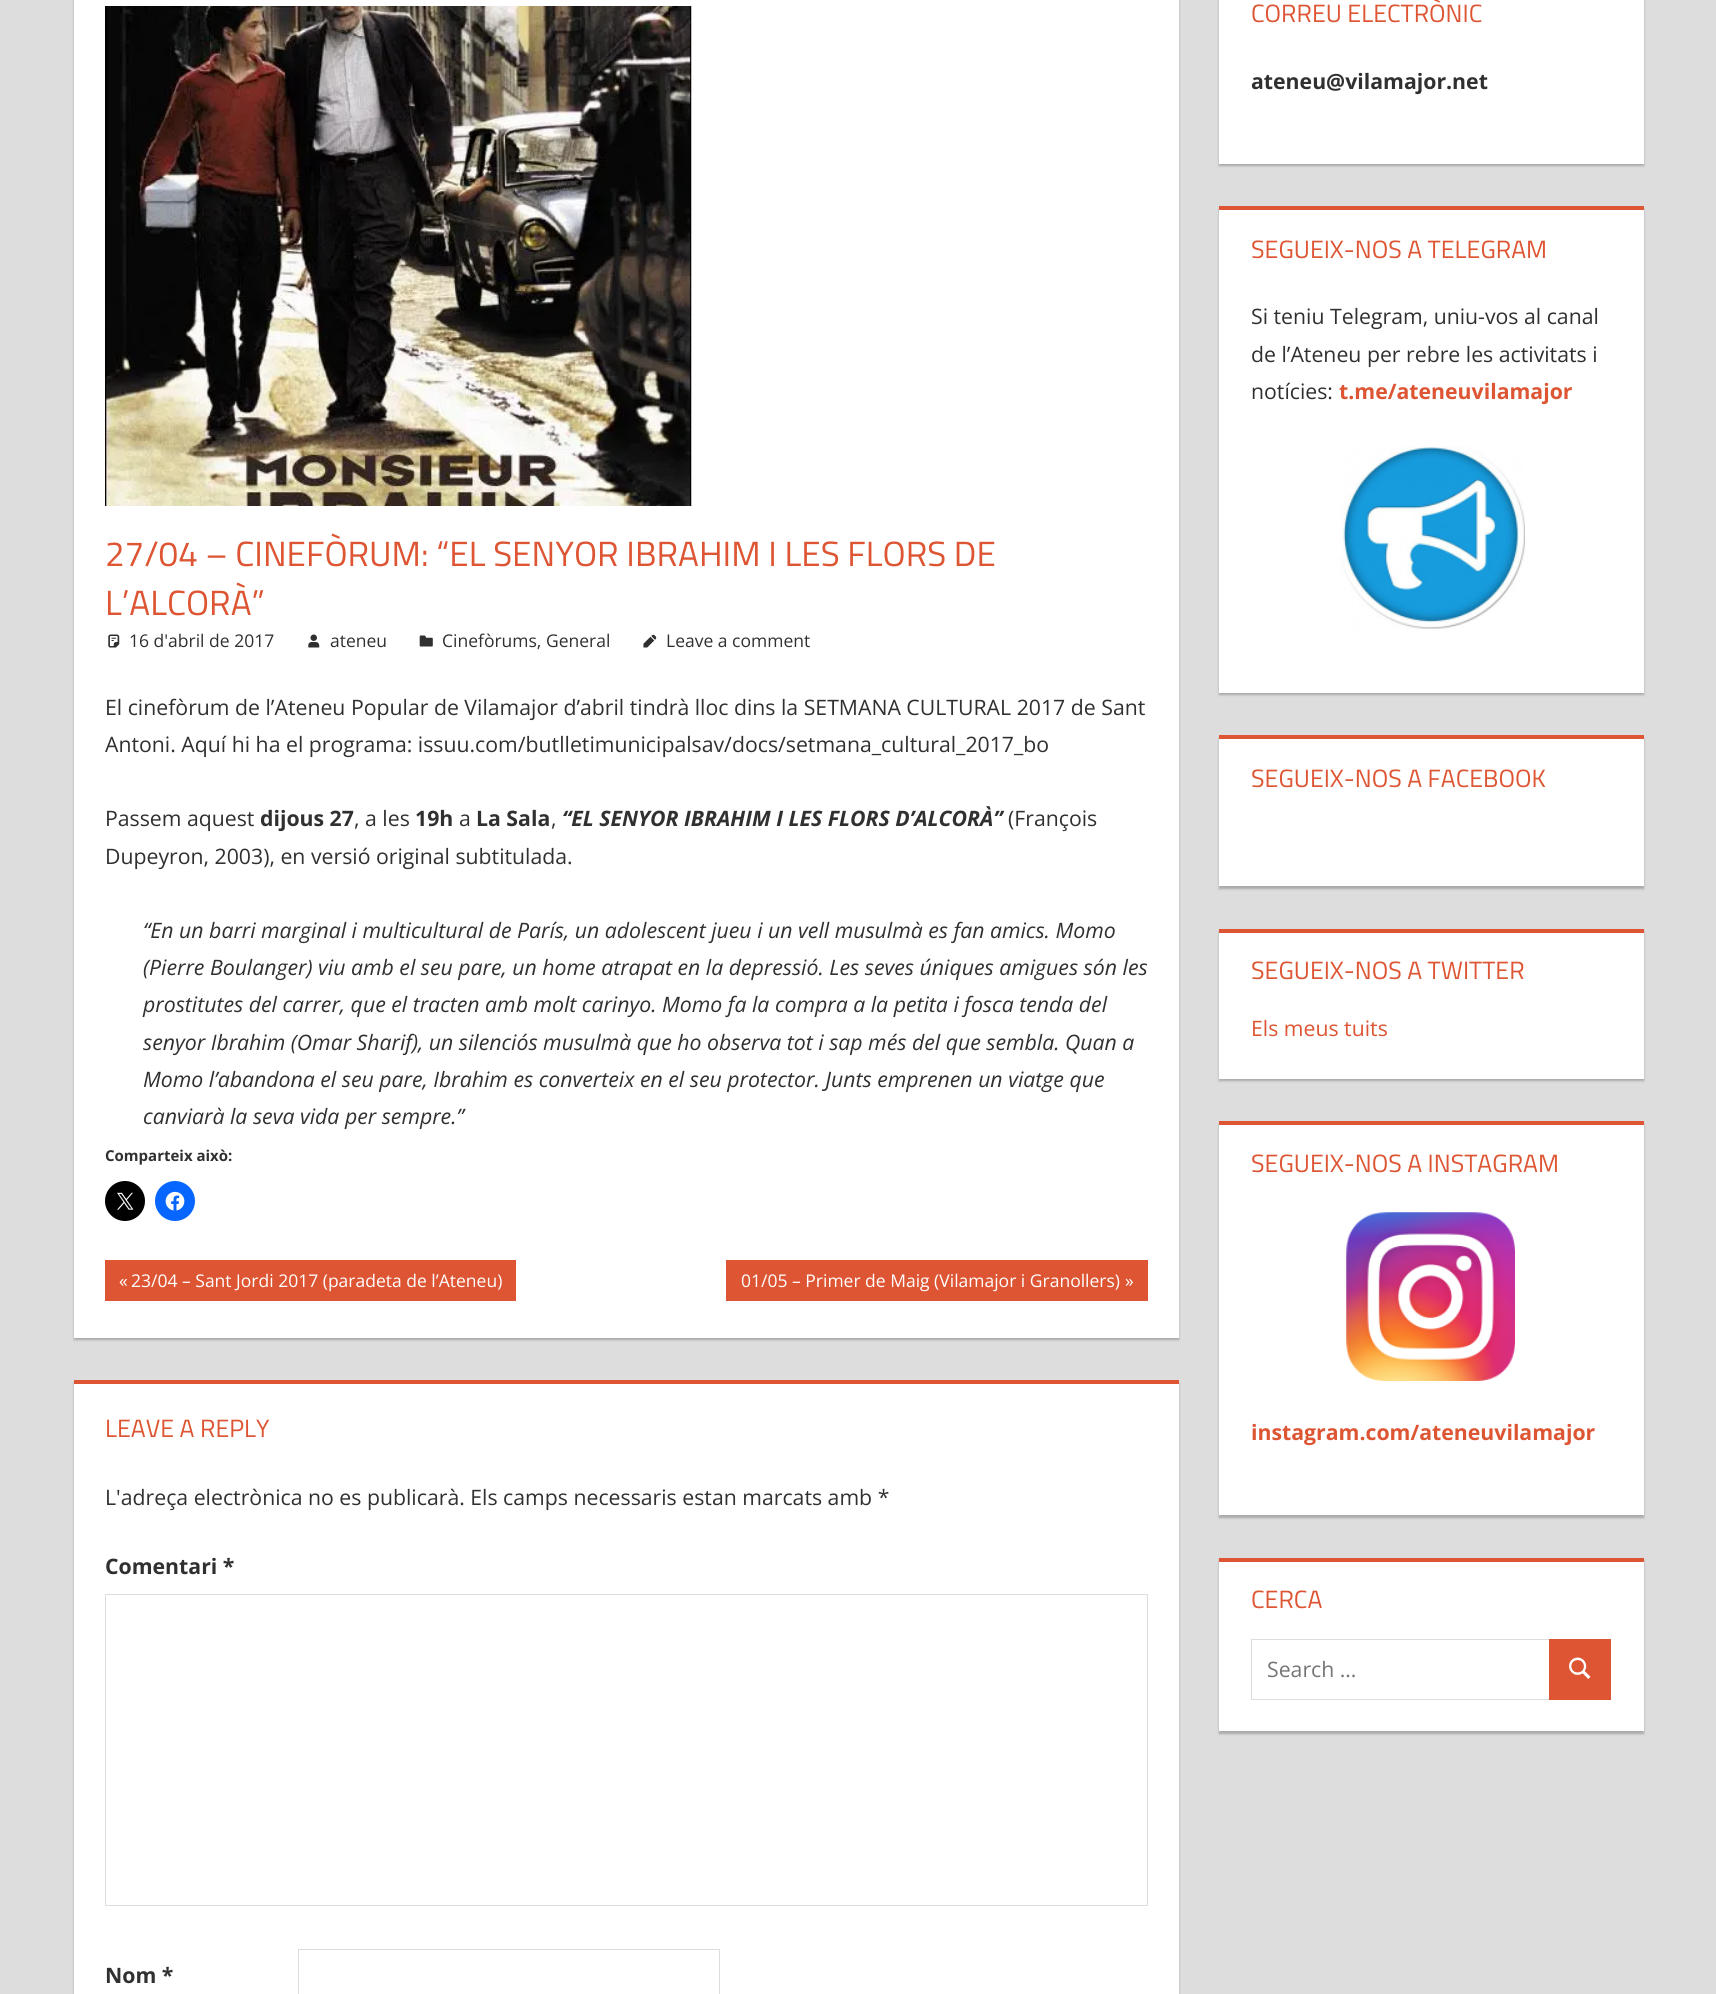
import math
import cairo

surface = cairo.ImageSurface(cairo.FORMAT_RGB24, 1716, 1994)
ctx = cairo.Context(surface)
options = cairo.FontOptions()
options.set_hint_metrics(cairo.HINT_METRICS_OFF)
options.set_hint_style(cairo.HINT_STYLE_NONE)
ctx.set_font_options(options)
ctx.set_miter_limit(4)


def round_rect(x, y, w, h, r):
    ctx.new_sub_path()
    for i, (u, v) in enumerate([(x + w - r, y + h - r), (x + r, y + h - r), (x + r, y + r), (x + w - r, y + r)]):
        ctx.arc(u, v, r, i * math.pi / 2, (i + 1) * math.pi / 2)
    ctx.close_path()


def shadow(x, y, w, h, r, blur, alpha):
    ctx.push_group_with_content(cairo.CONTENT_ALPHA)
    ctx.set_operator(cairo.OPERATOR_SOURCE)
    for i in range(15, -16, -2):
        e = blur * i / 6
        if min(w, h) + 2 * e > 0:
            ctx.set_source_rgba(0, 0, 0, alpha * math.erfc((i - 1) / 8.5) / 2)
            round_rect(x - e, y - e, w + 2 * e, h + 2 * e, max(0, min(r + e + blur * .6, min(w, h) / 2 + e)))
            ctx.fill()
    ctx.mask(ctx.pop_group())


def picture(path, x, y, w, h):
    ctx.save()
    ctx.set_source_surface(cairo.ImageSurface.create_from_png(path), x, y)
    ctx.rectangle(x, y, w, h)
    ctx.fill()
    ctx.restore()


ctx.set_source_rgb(0.867, 0.867, 0.867)
ctx.paint()
ctx.set_source_rgb(0.667, 0.667, 0.667)
shadow(74, -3, 1105, 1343, 0, 1, 1)
ctx.set_source_rgb(1, 1, 1)
ctx.rectangle(74, 0, 1105, 1338)
ctx.fill()
picture("img1.png", 105, 6, 587, 500)
ctx.select_font_face("Titillium Web")
ctx.set_font_size(35)
ctx.set_source_rgb(0.867, 0.333, 0.2)
ctx.move_to(105, 566)
ctx.show_text("27/04 – CINEFÒRUM: “EL SENYOR IBRAHIM I LES FLORS DE")
ctx.move_to(105, 615)
ctx.show_text("L’ALCORÀ”")
picture("img2.png", 108, 634, 12, 14)
ctx.select_font_face("Open Sans")
ctx.set_font_size(17.5)
ctx.set_source_rgb(0.188, 0.188, 0.188)
ctx.move_to(129, 647)
ctx.show_text("16 d'abril de 2017")
picture("img3.png", 308, 634, 12, 14)
ctx.move_to(330, 647)
ctx.show_text("ateneu")
picture("img4.png", 419, 635, 14, 12)
ctx.move_to(442, 647)
ctx.show_text("Cinefòrums, General")
picture("img5.png", 643, 634, 14, 14)
ctx.move_to(666, 647)
ctx.show_text("Leave a comment")
ctx.set_font_size(21.25)
ctx.move_to(105, 715)
ctx.show_text("El cinefòrum de l’Ateneu Popular de Vilamajor d’abril tindrà lloc dins la SETMANA CULTURAL 2017 de Sant")
ctx.move_to(105, 752)
ctx.show_text("Antoni. Aquí hi ha el programa: issuu.com/butlletimunicipalsav/docs/setmana_cultural_2017_bo")
ctx.move_to(105, 826)
ctx.show_text("Passem aquest")
ctx.select_font_face("Open Sans", cairo.FONT_SLANT_NORMAL, cairo.FONT_WEIGHT_BOLD)
ctx.move_to(260, 826)
ctx.show_text("dijous 27")
ctx.select_font_face("Open Sans")
ctx.move_to(354, 826)
ctx.show_text(", a les")
ctx.select_font_face("Open Sans", cairo.FONT_SLANT_NORMAL, cairo.FONT_WEIGHT_BOLD)
ctx.move_to(415, 826)
ctx.show_text("19h")
ctx.select_font_face("Open Sans")
ctx.move_to(459, 826)
ctx.show_text("a")
ctx.select_font_face("Open Sans", cairo.FONT_SLANT_NORMAL, cairo.FONT_WEIGHT_BOLD)
ctx.move_to(476, 826)
ctx.show_text("La Sala")
ctx.select_font_face("Open Sans")
ctx.move_to(551, 826)
ctx.show_text(",")
ctx.select_font_face("Open Sans", cairo.FONT_SLANT_ITALIC, cairo.FONT_WEIGHT_BOLD)
ctx.move_to(562, 826)
ctx.show_text("“EL SENYOR IBRAHIM I LES FLORS D’ALCORÀ”")
ctx.select_font_face("Open Sans")
ctx.move_to(1008, 826)
ctx.show_text("(François")
ctx.move_to(105, 864)
ctx.show_text("Dupeyron, 2003), en versió original subtitulada.")
ctx.select_font_face("Open Sans", cairo.FONT_SLANT_ITALIC)
ctx.move_to(143, 938)
ctx.show_text("“En un barri marginal i multicultural de París, un adolescent jueu i un vell musulmà es fan amics. Momo")
ctx.move_to(143, 975)
ctx.show_text("(Pierre Boulanger) viu amb el seu pare, un home atrapat en la depressió. Les seves úniques amigues són les")
ctx.move_to(143, 1012)
ctx.show_text("prostitutes del carrer, que el tracten amb molt carinyo. Momo fa la compra a la petita i fosca tenda del")
ctx.move_to(143, 1050)
ctx.show_text("senyor Ibrahim (Omar Sharif), un silenciós musulmà que ho observa tot i sap més del que sembla. Quan a")
ctx.move_to(143, 1087)
ctx.show_text("Momo l’abandona el seu pare, Ibrahim es converteix en el seu protector. Junts emprenen un viatge que")
ctx.move_to(143, 1124)
ctx.show_text("canviarà la seva vida per sempre.”")
ctx.select_font_face("Open Sans", cairo.FONT_SLANT_NORMAL, cairo.FONT_WEIGHT_BOLD)
ctx.set_font_size(15)
ctx.move_to(105, 1161)
ctx.show_text("Comparteix això:")
ctx.set_source_rgb(0, 0, 0)
ctx.new_path()
ctx.arc(125, 1201, 20, 0, 2 * math.pi)
ctx.fill()
picture("img6.png", 117, 1192, 17, 18)
ctx.set_source_rgb(0.031, 0.4, 1)
ctx.arc(175, 1201, 20, 0, 2 * math.pi)
ctx.fill()
picture("img7.png", 165, 1191, 20, 20)
ctx.set_source_rgb(0.867, 0.333, 0.2)
ctx.rectangle(105, 1260, 411, 41)
ctx.fill()
ctx.select_font_face("Open Sans")
ctx.set_font_size(17.5)
ctx.set_source_rgb(1, 1, 1)
ctx.move_to(119, 1287)
ctx.show_text("«")
ctx.move_to(131, 1287)
ctx.show_text("23/04 – Sant Jordi 2017 (paradeta de l’Ateneu)")
ctx.set_source_rgb(0.867, 0.333, 0.2)
ctx.rectangle(726, 1260, 422, 41)
ctx.fill()
ctx.set_source_rgb(1, 1, 1)
ctx.move_to(741, 1287)
ctx.show_text("01/05 – Primer de Maig (Vilamajor i Granollers)")
ctx.move_to(1125, 1287)
ctx.show_text("»")
ctx.set_source_rgb(0.667, 0.667, 0.667)
shadow(74, 1383, 1105, 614, 0, 1, 1)
ctx.set_source_rgb(1, 1, 1)
ctx.rectangle(74, 1384, 1105, 610)
ctx.fill()
ctx.set_source_rgb(0.867, 0.333, 0.2)
ctx.rectangle(74, 1380, 1105, 4)
ctx.fill()
ctx.select_font_face("Titillium Web")
ctx.set_font_size(25)
ctx.move_to(105, 1437)
ctx.show_text("LEAVE A REPLY")
ctx.select_font_face("Open Sans")
ctx.set_font_size(21.25)
ctx.set_source_rgb(0.188, 0.188, 0.188)
ctx.move_to(105, 1505)
ctx.show_text("L'adreça electrònica no es publicarà. Els camps necessaris estan marcats amb *")
ctx.select_font_face("Open Sans", cairo.FONT_SLANT_NORMAL, cairo.FONT_WEIGHT_BOLD)
ctx.move_to(105, 1574)
ctx.show_text("Comentari *")
ctx.rectangle(105.5, 1594.5, 1042, 311)
ctx.set_source_rgb(0.867, 0.867, 0.867)
ctx.set_line_width(1)
ctx.stroke()
ctx.set_source_rgb(0.188, 0.188, 0.188)
ctx.move_to(105, 1983)
ctx.show_text("Nom *")
ctx.rectangle(298.5, 1949.5, 421, 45)
ctx.set_source_rgb(0.867, 0.867, 0.867)
ctx.stroke()
ctx.set_source_rgb(0.667, 0.667, 0.667)
shadow(1219, -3, 425, 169, 0, 1, 1)
ctx.set_source_rgb(1, 1, 1)
ctx.rectangle(1219, 0, 425, 164)
ctx.fill()
ctx.select_font_face("Titillium Web")
ctx.set_font_size(25)
ctx.set_source_rgb(0.867, 0.333, 0.2)
ctx.move_to(1251, 22)
ctx.show_text("CORREU ELECTRÒNIC")
ctx.select_font_face("Open Sans", cairo.FONT_SLANT_NORMAL, cairo.FONT_WEIGHT_BOLD)
ctx.set_font_size(21.25)
ctx.set_source_rgb(0.188, 0.188, 0.188)
ctx.move_to(1251, 89)
ctx.show_text("ateneu@vilamajor.net")
ctx.set_source_rgb(0.667, 0.667, 0.667)
shadow(1219, 209, 425, 486, 0, 1, 1)
ctx.set_source_rgb(1, 1, 1)
ctx.rectangle(1219, 210, 425, 483)
ctx.fill()
ctx.set_source_rgb(0.867, 0.333, 0.2)
ctx.rectangle(1219, 206, 425, 4)
ctx.fill()
ctx.select_font_face("Titillium Web")
ctx.set_font_size(25)
ctx.move_to(1251, 258)
ctx.show_text("SEGUEIX-NOS A TELEGRAM")
ctx.select_font_face("Open Sans")
ctx.set_font_size(21.25)
ctx.set_source_rgb(0.188, 0.188, 0.188)
ctx.move_to(1251, 324)
ctx.show_text("Si teniu Telegram, uniu-vos al canal")
ctx.move_to(1251, 362)
ctx.show_text("de l’Ateneu per rebre les activitats i")
ctx.move_to(1251, 399)
ctx.show_text("notícies:")
ctx.select_font_face("Open Sans", cairo.FONT_SLANT_NORMAL, cairo.FONT_WEIGHT_BOLD)
ctx.set_source_rgb(0.867, 0.333, 0.2)
ctx.move_to(1339, 399)
ctx.show_text("t.me/ateneuvilamajor")
picture("img8.png", 1340, 446, 185, 183)
ctx.set_source_rgb(0.667, 0.667, 0.667)
shadow(1219, 738, 425, 151, 0, 1, 1)
ctx.set_source_rgb(1, 1, 1)
ctx.rectangle(1219, 739, 425, 147)
ctx.fill()
ctx.set_source_rgb(0.867, 0.333, 0.2)
ctx.rectangle(1219, 735, 425, 4)
ctx.fill()
ctx.select_font_face("Titillium Web")
ctx.set_font_size(25)
ctx.move_to(1251, 787)
ctx.show_text("SEGUEIX-NOS A FACEBOOK")
ctx.set_source_rgb(0.667, 0.667, 0.667)
shadow(1219, 931, 425, 150, 0, 1, 1)
ctx.set_source_rgb(1, 1, 1)
ctx.rectangle(1219, 933, 425, 146)
ctx.fill()
ctx.set_source_rgb(0.867, 0.333, 0.2)
ctx.rectangle(1219, 929, 425, 4)
ctx.fill()
ctx.move_to(1251, 979)
ctx.show_text("SEGUEIX-NOS A TWITTER")
ctx.select_font_face("Open Sans")
ctx.set_font_size(21.25)
ctx.move_to(1251, 1036)
ctx.show_text("Els meus tuits")
ctx.set_source_rgb(0.667, 0.667, 0.667)
shadow(1219, 1124, 425, 394, 0, 1, 1)
ctx.set_source_rgb(1, 1, 1)
ctx.rectangle(1219, 1125, 425, 390)
ctx.fill()
ctx.set_source_rgb(0.867, 0.333, 0.2)
ctx.rectangle(1219, 1121, 425, 4)
ctx.fill()
ctx.select_font_face("Titillium Web")
ctx.set_font_size(25)
ctx.move_to(1251, 1172)
ctx.show_text("SEGUEIX-NOS A INSTAGRAM")
picture("img9.png", 1346, 1212, 169, 169)
ctx.select_font_face("Open Sans", cairo.FONT_SLANT_NORMAL, cairo.FONT_WEIGHT_BOLD)
ctx.set_font_size(21.25)
ctx.move_to(1251, 1440)
ctx.show_text("instagram.com/ateneuvilamajor")
ctx.set_source_rgb(0.667, 0.667, 0.667)
shadow(1219, 1560, 425, 174, 0, 1, 1)
ctx.set_source_rgb(1, 1, 1)
ctx.rectangle(1219, 1562, 425, 169)
ctx.fill()
ctx.set_source_rgb(0.867, 0.333, 0.2)
ctx.rectangle(1219, 1558, 425, 4)
ctx.fill()
ctx.select_font_face("Titillium Web")
ctx.set_font_size(25)
ctx.move_to(1251, 1608)
ctx.show_text("CERCA")
ctx.rectangle(1251.5, 1639.5, 298, 60)
ctx.set_source_rgb(0.867, 0.867, 0.867)
ctx.stroke()
ctx.select_font_face("Open Sans")
ctx.set_font_size(21.25)
ctx.set_source_rgb(0.459, 0.459, 0.459)
ctx.move_to(1267, 1677)
ctx.show_text("Search …")
ctx.set_source_rgb(0.867, 0.333, 0.2)
ctx.rectangle(1549, 1639, 62, 61)
ctx.fill()
picture("img10.png", 1569, 1657, 22, 22)
surface.write_to_png("page.png")
